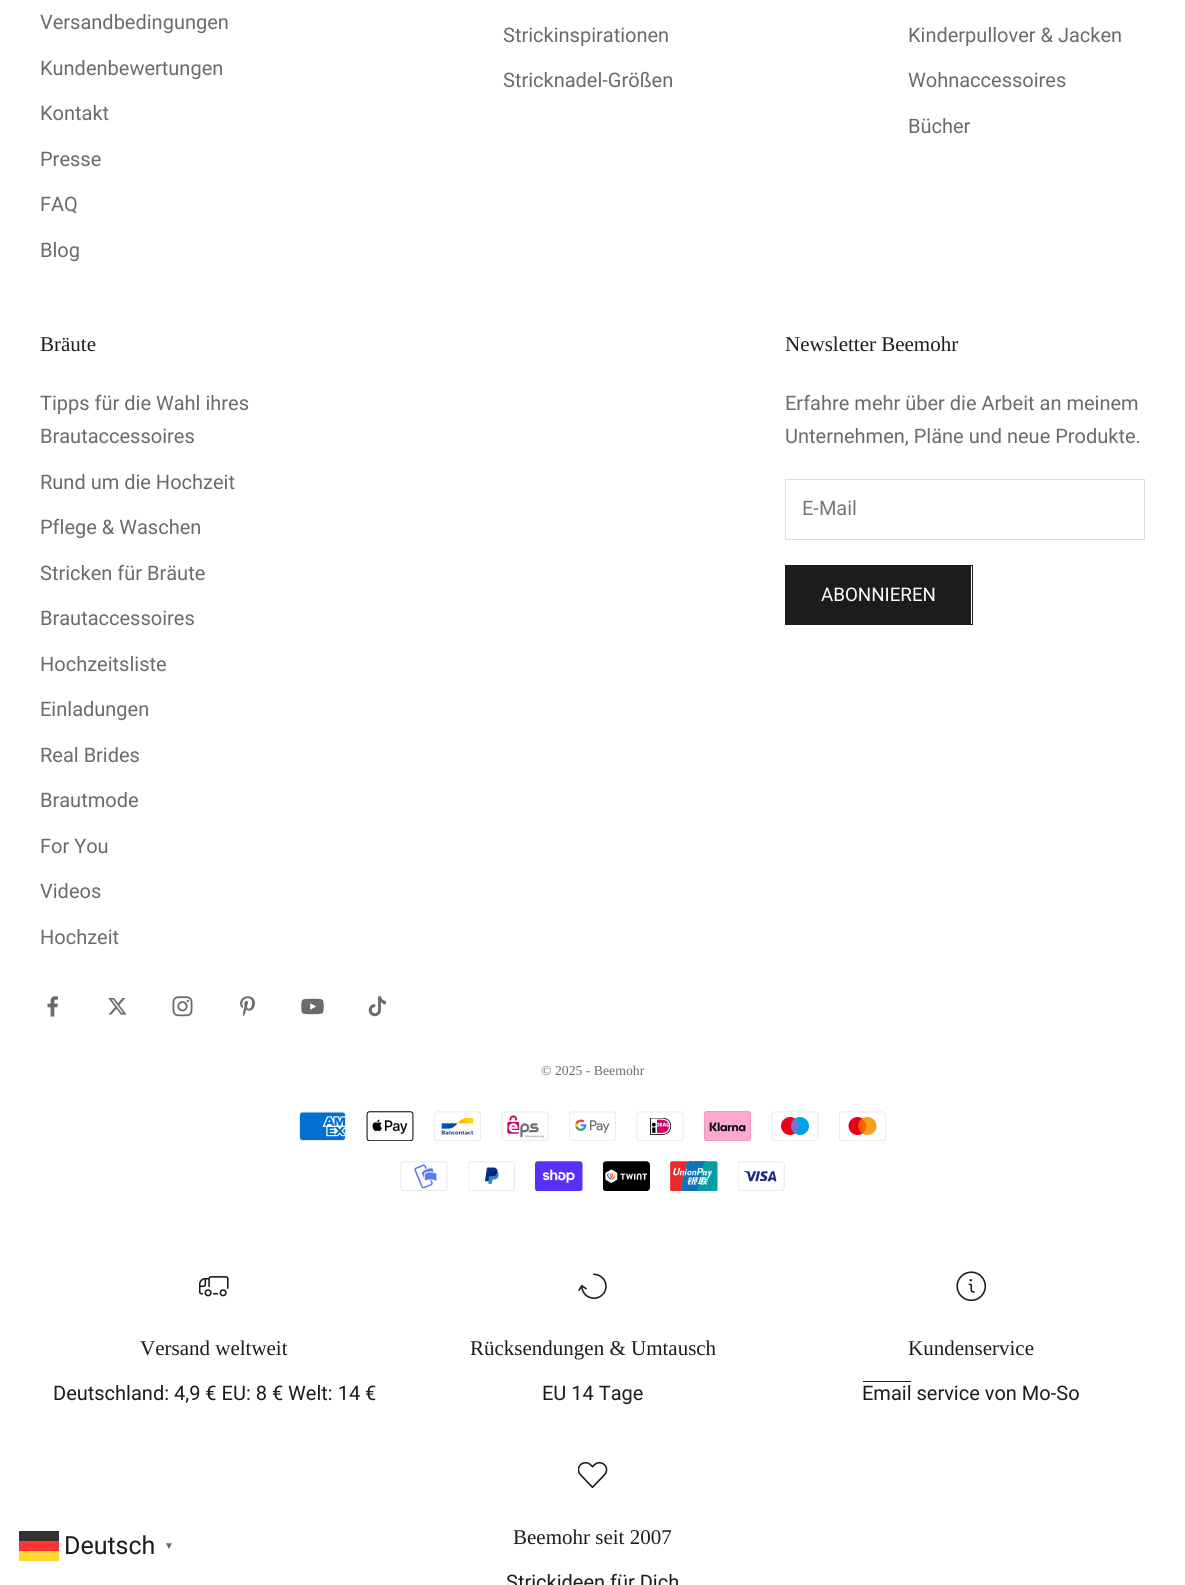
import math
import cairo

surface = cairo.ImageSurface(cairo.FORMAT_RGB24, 1185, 1585)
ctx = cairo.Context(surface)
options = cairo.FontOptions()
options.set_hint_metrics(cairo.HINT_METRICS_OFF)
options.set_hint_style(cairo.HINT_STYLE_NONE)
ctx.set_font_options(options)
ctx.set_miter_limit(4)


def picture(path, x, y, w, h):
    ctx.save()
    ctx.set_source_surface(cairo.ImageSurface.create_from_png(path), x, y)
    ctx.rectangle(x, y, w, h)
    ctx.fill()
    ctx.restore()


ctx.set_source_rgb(1, 1, 1)
ctx.paint()
ctx.select_font_face("Roboto")
ctx.set_font_size(20)
ctx.set_source_rgb(0.42, 0.42, 0.42)
ctx.move_to(40, 29)
ctx.show_text("Versandbedingungen")
ctx.move_to(40, 75)
ctx.show_text("Kundenbewertungen")
ctx.move_to(40, 120)
ctx.show_text("Kontakt")
ctx.move_to(40, 166)
ctx.show_text("Presse")
ctx.move_to(40, 211)
ctx.show_text("FAQ")
ctx.move_to(40, 257)
ctx.show_text("Blog")
ctx.move_to(503, 42)
ctx.show_text("Strickinspirationen")
ctx.move_to(503, 87)
ctx.show_text("Stricknadel-Größen")
ctx.move_to(908, 42)
ctx.show_text("Kinderpullover & Jacken")
ctx.move_to(908, 87)
ctx.show_text("Wohnaccessoires")
ctx.move_to(908, 133)
ctx.show_text("Bücher")
ctx.select_font_face("Liberation Serif")
ctx.set_font_size(21)
ctx.set_source_rgb(0.11, 0.11, 0.11)
ctx.move_to(40, 351)
ctx.show_text("Bräute")
ctx.select_font_face("Roboto")
ctx.set_font_size(20)
ctx.set_source_rgb(0.42, 0.42, 0.42)
ctx.move_to(40, 410)
ctx.show_text("Tipps für die Wahl ihres")
ctx.move_to(40, 443)
ctx.show_text("Brautaccessoires")
ctx.move_to(40, 489)
ctx.show_text("Rund um die Hochzeit")
ctx.move_to(40, 534)
ctx.show_text("Pflege & Waschen")
ctx.move_to(40, 580)
ctx.show_text("Stricken für Bräute")
ctx.move_to(40, 625)
ctx.show_text("Brautaccessoires")
ctx.move_to(40, 671)
ctx.show_text("Hochzeitsliste")
ctx.move_to(40, 716)
ctx.show_text("Einladungen")
ctx.move_to(40, 762)
ctx.show_text("Real Brides")
ctx.move_to(40, 807)
ctx.show_text("Brautmode")
ctx.move_to(40, 853)
ctx.show_text("For You")
ctx.move_to(40, 898)
ctx.show_text("Videos")
ctx.move_to(40, 944)
ctx.show_text("Hochzeit")
ctx.select_font_face("Liberation Serif")
ctx.set_font_size(21)
ctx.set_source_rgb(0.11, 0.11, 0.11)
ctx.move_to(785, 351)
ctx.show_text("Newsletter Beemohr")
ctx.select_font_face("Roboto")
ctx.set_font_size(20)
ctx.set_source_rgb(0.42, 0.42, 0.42)
ctx.move_to(785, 410)
ctx.show_text("Erfahre mehr über die Arbeit an meinem")
ctx.move_to(785, 443)
ctx.show_text("Unternehmen, Pläne und neue Produkte.")
ctx.rectangle(785.5, 479.5, 359, 60)
ctx.set_source_rgb(0.867, 0.867, 0.867)
ctx.set_line_width(1)
ctx.stroke()
ctx.set_source_rgb(0.467, 0.467, 0.467)
ctx.move_to(802, 515)
ctx.show_text("E-Mail")
ctx.set_source_rgb(0.11, 0.11, 0.11)
ctx.rectangle(786, 566, 185, 58)
ctx.fill()
ctx.rectangle(785.5, 565.5, 187, 59)
ctx.stroke()
ctx.set_font_size(18.75)
ctx.set_source_rgb(1, 1, 1)
ctx.move_to(821, 601)
ctx.show_text("ABONNIEREN")
picture("img1.png", 47, 996, 11, 21)
picture("img2.png", 108, 997, 19, 18)
picture("img3.png", 172, 996, 21, 21)
picture("img4.png", 240, 996, 15, 21)
picture("img5.png", 301, 998, 23, 17)
picture("img6.png", 368, 996, 18, 21)
ctx.select_font_face("Liberation Serif")
ctx.set_font_size(13.75)
ctx.set_source_rgb(0.42, 0.42, 0.42)
ctx.move_to(541, 1075)
ctx.show_text("© 2025 - Beemohr")
picture("img7.png", 299, 1111, 47, 30)
picture("img8.png", 366, 1111, 48, 30)
picture("img9.png", 434, 1111, 47, 30)
picture("img10.png", 501, 1111, 48, 30)
picture("img11.png", 569, 1111, 47, 30)
picture("img12.png", 636, 1111, 48, 30)
picture("img13.png", 704, 1111, 47, 30)
picture("img14.png", 771, 1111, 48, 30)
picture("img15.png", 839, 1111, 47, 30)
picture("img16.png", 400, 1161, 48, 30)
picture("img17.png", 468, 1161, 47, 30)
picture("img18.png", 535, 1161, 48, 30)
picture("img19.png", 603, 1161, 47, 30)
picture("img20.png", 670, 1161, 48, 30)
picture("img21.png", 738, 1161, 47, 30)
picture("img22.png", 199, 1276, 30, 21)
ctx.set_font_size(21)
ctx.set_source_rgb(0.11, 0.11, 0.11)
ctx.move_to(140, 1355)
ctx.show_text("Versand weltweit")
ctx.select_font_face("Roboto")
ctx.set_font_size(20)
ctx.move_to(53, 1400)
ctx.show_text("Deutschland: 4,9 € EU: 8 € Welt: 14 €")
picture("img23.png", 578, 1273, 29, 26)
ctx.select_font_face("Liberation Serif")
ctx.set_font_size(21)
ctx.move_to(470, 1355)
ctx.show_text("Rücksendungen & Umtausch")
ctx.select_font_face("Roboto")
ctx.set_font_size(20)
ctx.move_to(542, 1400)
ctx.show_text("EU 14 Tage")
picture("img24.png", 956, 1271, 30, 30)
ctx.select_font_face("Liberation Serif")
ctx.set_font_size(21)
ctx.move_to(908, 1355)
ctx.show_text("Kundenservice")
ctx.select_font_face("Roboto")
ctx.set_font_size(20)
ctx.move_to(862, 1400)
ctx.show_text("Email service von Mo-So")
ctx.rectangle(863, 1381, 48, 1)
ctx.fill()
picture("img25.png", 578, 1461, 30, 28)
ctx.select_font_face("Liberation Serif")
ctx.set_font_size(21)
ctx.move_to(513, 1544)
ctx.show_text("Beemohr seit 2007")
ctx.select_font_face("Roboto")
ctx.set_font_size(20)
ctx.move_to(506, 1589)
ctx.show_text("Strickideen für Dich")
ctx.set_font_size(25)
ctx.move_to(64, 1554)
ctx.show_text("Deutsch")
ctx.set_source_rgb(1, 0.839, 0.2)
ctx.rectangle(19, 1551, 40, 10)
ctx.fill()
ctx.set_source_rgb(0.2, 0.2, 0.2)
ctx.rectangle(19, 1531, 40, 10)
ctx.fill()
ctx.set_source_rgb(1, 0.2, 0.2)
ctx.rectangle(19, 1541, 40, 10)
ctx.fill()
ctx.select_font_face("Liberation Sans", cairo.FONT_SLANT_NORMAL, cairo.FONT_WEIGHT_BOLD)
ctx.set_font_size(10)
ctx.set_source_rgb(0.42, 0.42, 0.42)
ctx.move_to(164, 1549)
ctx.show_text("▼")
surface.write_to_png("page.png")
